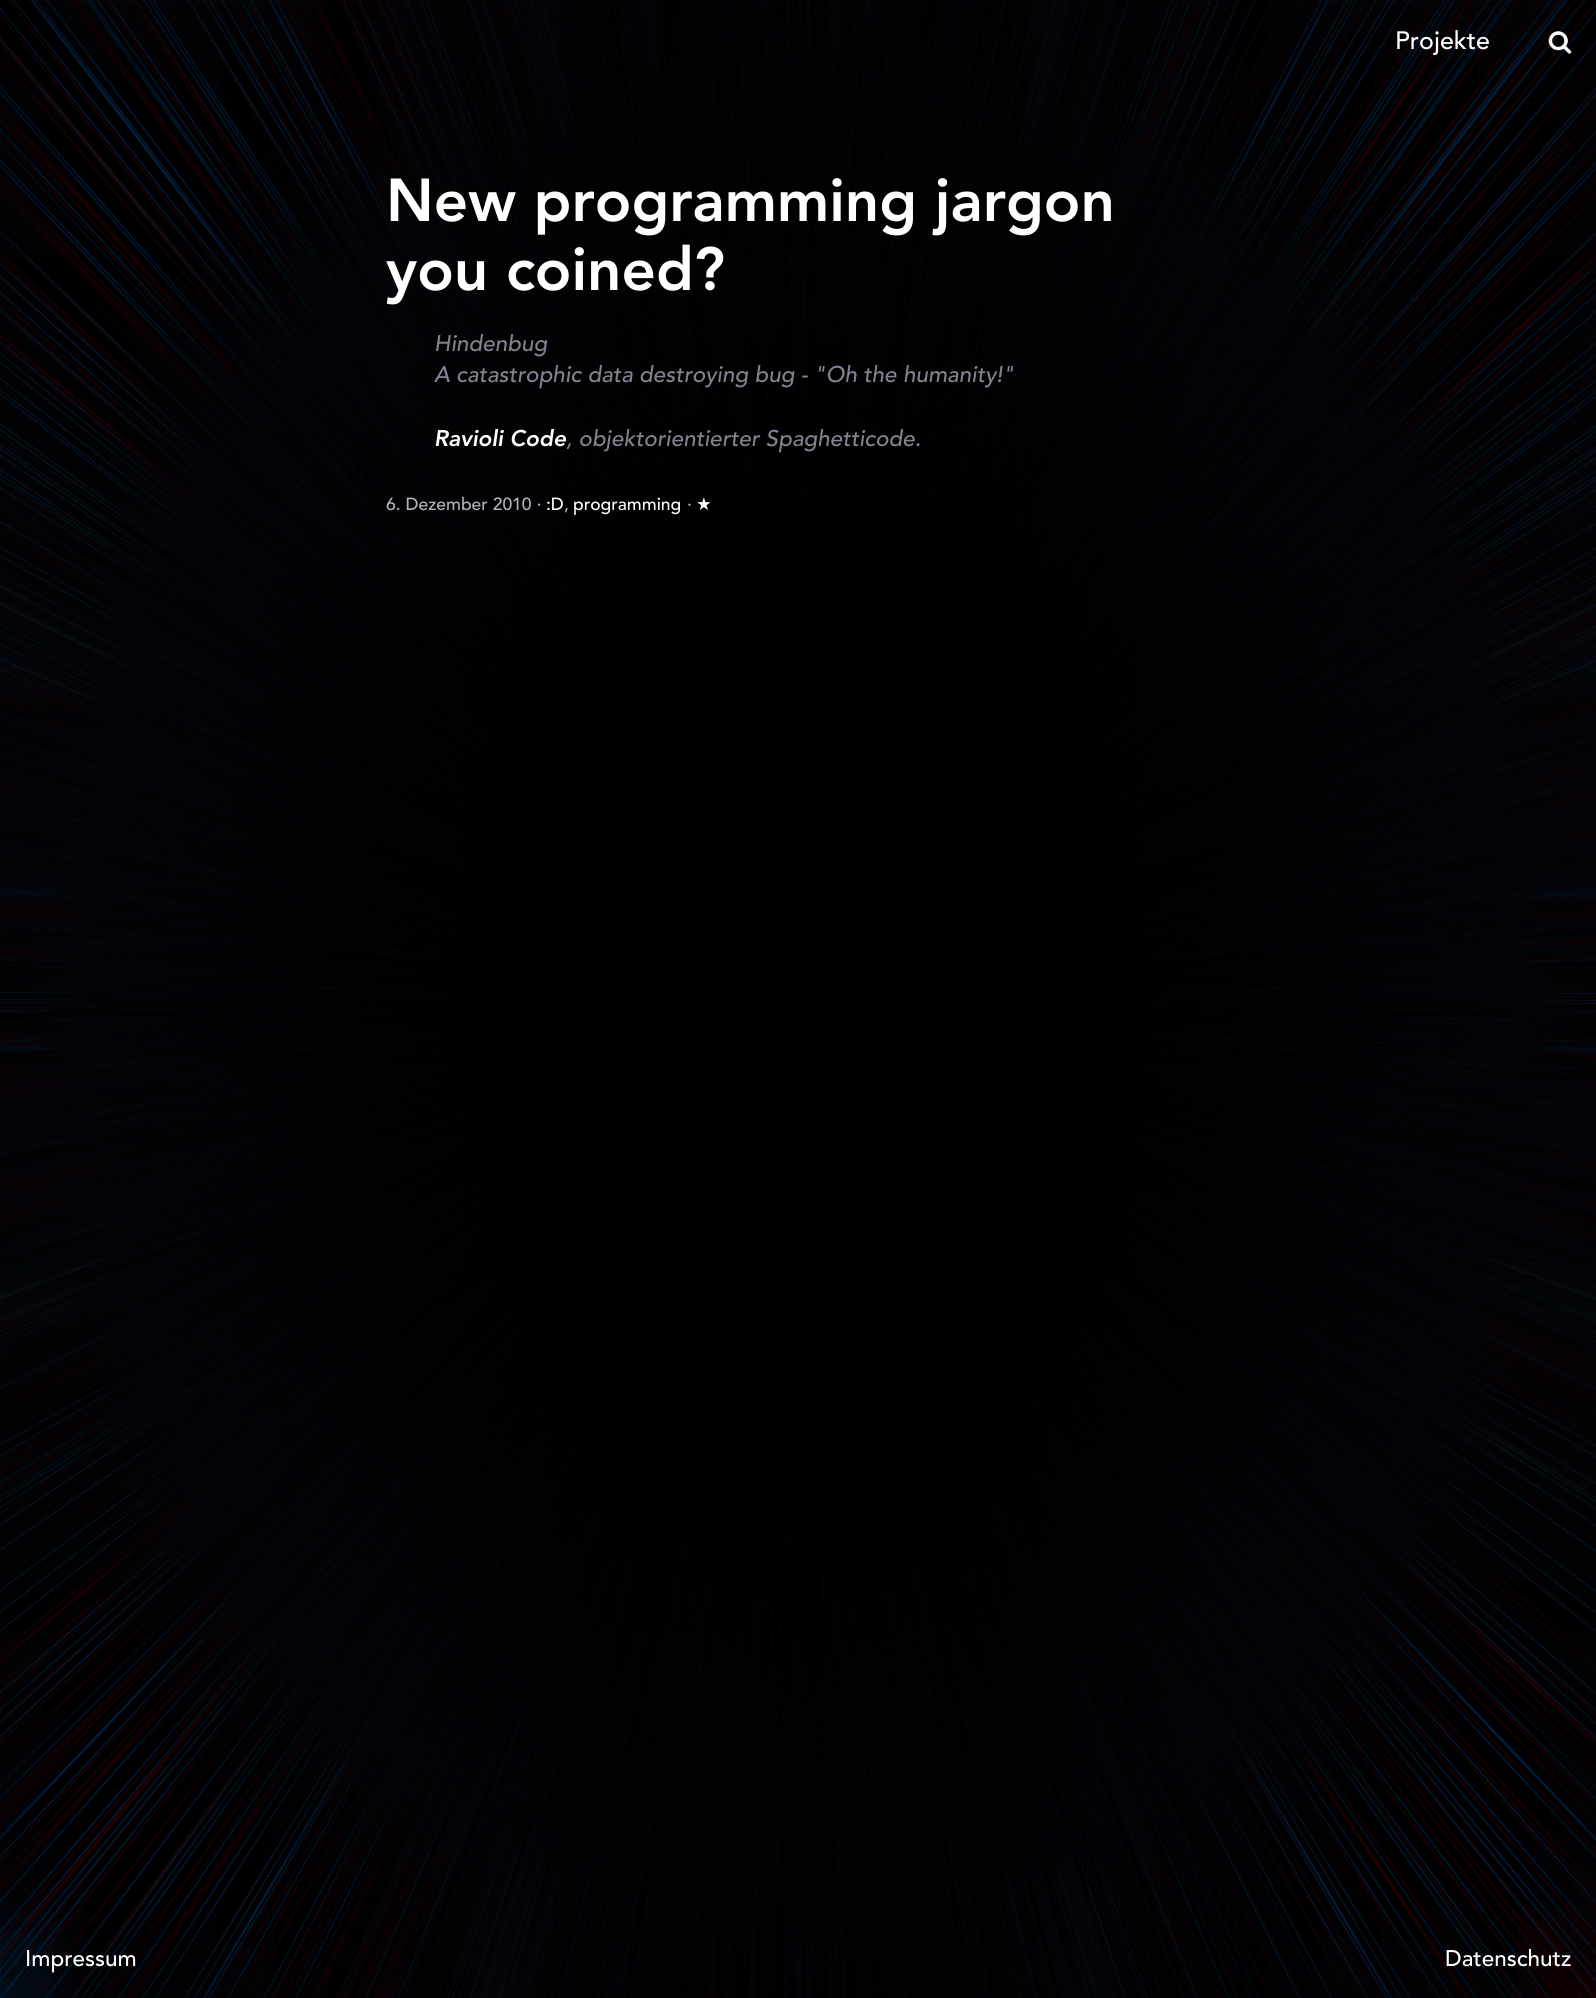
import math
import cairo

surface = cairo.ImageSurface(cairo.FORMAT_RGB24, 1596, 1998)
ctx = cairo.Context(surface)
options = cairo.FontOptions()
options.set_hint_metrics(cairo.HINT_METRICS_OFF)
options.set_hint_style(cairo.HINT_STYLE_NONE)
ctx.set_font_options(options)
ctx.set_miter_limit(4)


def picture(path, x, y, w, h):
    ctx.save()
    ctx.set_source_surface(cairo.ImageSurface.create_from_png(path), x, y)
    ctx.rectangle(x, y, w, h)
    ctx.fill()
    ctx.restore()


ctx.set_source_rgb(1, 1, 1)
ctx.paint()
picture("img1.png", 0, 0, 1596, 1998)
ctx.select_font_face("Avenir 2")
ctx.set_font_size(25)
ctx.set_source_rgb(1, 1, 1)
ctx.move_to(1395, 49)
ctx.show_text("Projekte")
picture("img2.png", 1548, 31, 24, 23)
ctx.select_font_face("Avenir")
ctx.set_font_size(60)
ctx.move_to(386, 221)
ctx.show_text("New programming jargon")
ctx.move_to(386, 290)
ctx.show_text("you coined?")
ctx.select_font_face("Avenir", cairo.FONT_SLANT_ITALIC)
ctx.set_font_size(22.5)
ctx.set_source_rgb(0.51, 0.51, 0.573)
ctx.move_to(434, 351)
ctx.show_text("Hindenbug")
ctx.move_to(434, 382)
ctx.show_text("A catastrophic data destroying bug - \"Oh the humanity!\"")
ctx.select_font_face("Avenir 2", cairo.FONT_SLANT_ITALIC)
ctx.set_source_rgb(1, 1, 1)
ctx.move_to(434, 446)
ctx.show_text("Ravioli Code")
ctx.select_font_face("Avenir", cairo.FONT_SLANT_ITALIC)
ctx.set_source_rgb(0.51, 0.51, 0.573)
ctx.move_to(566, 446)
ctx.show_text(", objektorientierter Spaghetticode.")
ctx.select_font_face("Avenir 2")
ctx.set_font_size(17.5)
ctx.set_source_rgb(0.702, 0.702, 0.749)
ctx.move_to(386, 510)
ctx.show_text("6. Dezember 2010 ·")
ctx.set_source_rgb(1, 1, 1)
ctx.move_to(546, 510)
ctx.show_text(":D")
ctx.move_to(573, 510)
ctx.show_text("programming")
ctx.set_source_rgb(0.702, 0.702, 0.749)
ctx.move_to(687, 510)
ctx.show_text("·")
ctx.select_font_face("DejaVu Sans")
ctx.set_source_rgb(1, 1, 1)
ctx.move_to(696, 510)
ctx.show_text("★")
ctx.select_font_face("Avenir 2")
ctx.set_source_rgb(0.702, 0.702, 0.749)
ctx.move_to(564, 510)
ctx.show_text(",")
ctx.set_font_size(22.5)
ctx.set_source_rgb(1, 1, 1)
ctx.move_to(25, 1966)
ctx.show_text("Impressum")
ctx.move_to(1445, 1966)
ctx.show_text("Datenschutz")
surface.write_to_png("page.png")
